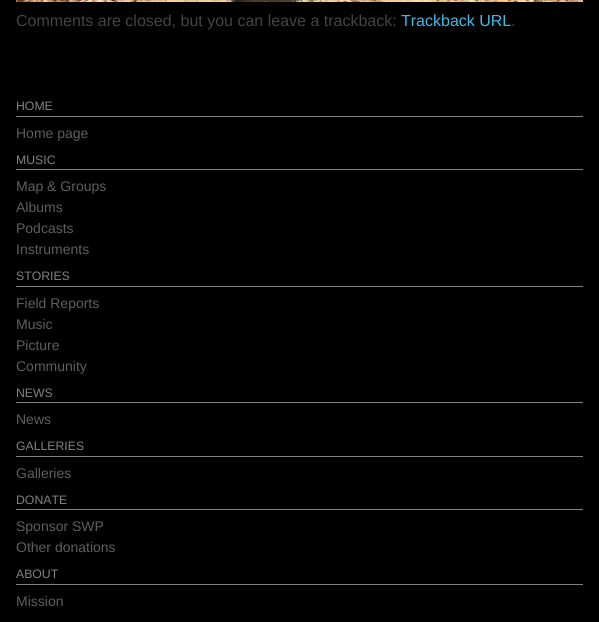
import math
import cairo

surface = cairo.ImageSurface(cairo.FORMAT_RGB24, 599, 622)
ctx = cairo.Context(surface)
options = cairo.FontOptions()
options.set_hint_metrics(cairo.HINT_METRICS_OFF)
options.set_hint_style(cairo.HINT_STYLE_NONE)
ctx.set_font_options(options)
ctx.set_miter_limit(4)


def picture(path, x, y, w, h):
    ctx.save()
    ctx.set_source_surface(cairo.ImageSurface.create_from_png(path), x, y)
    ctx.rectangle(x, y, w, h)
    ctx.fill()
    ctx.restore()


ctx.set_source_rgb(0, 0, 0)
ctx.paint()
picture("img1.png", 16, 0, 567, 2)
ctx.select_font_face("Liberation Sans")
ctx.set_font_size(16)
ctx.set_source_rgb(0.267, 0.267, 0.267)
ctx.move_to(16, 26)
ctx.show_text("Comments are closed, but you can leave a trackback:")
ctx.set_source_rgb(0.231, 0.741, 0.918)
ctx.move_to(401, 26)
ctx.show_text("Trackback URL")
ctx.set_source_rgb(0.267, 0.267, 0.267)
ctx.move_to(511, 26)
ctx.show_text(".")
ctx.set_source_rgb(0.51, 0.51, 0.51)
ctx.rectangle(16, 116, 567, 1)
ctx.fill()
ctx.set_font_size(12.25)
ctx.move_to(16, 110)
ctx.show_text("HOME")
ctx.set_font_size(14)
ctx.set_source_rgb(0.369, 0.369, 0.369)
ctx.move_to(16, 138)
ctx.show_text("Home page")
ctx.set_source_rgb(0.51, 0.51, 0.51)
ctx.rectangle(16, 169, 567, 1)
ctx.fill()
ctx.set_font_size(12.25)
ctx.move_to(16, 164)
ctx.show_text("MUSIC")
ctx.set_font_size(14)
ctx.set_source_rgb(0.369, 0.369, 0.369)
ctx.move_to(16, 191)
ctx.show_text("Map & Groups")
ctx.move_to(16, 212)
ctx.show_text("Albums")
ctx.move_to(16, 233)
ctx.show_text("Podcasts")
ctx.move_to(16, 254)
ctx.show_text("Instruments")
ctx.set_source_rgb(0.51, 0.51, 0.51)
ctx.rectangle(16, 286, 567, 1)
ctx.fill()
ctx.set_font_size(12.25)
ctx.move_to(16, 280)
ctx.show_text("STORIES")
ctx.set_font_size(14)
ctx.set_source_rgb(0.369, 0.369, 0.369)
ctx.move_to(16, 308)
ctx.show_text("Field Reports")
ctx.move_to(16, 329)
ctx.show_text("Music")
ctx.move_to(16, 350)
ctx.show_text("Picture")
ctx.move_to(16, 371)
ctx.show_text("Community")
ctx.set_source_rgb(0.51, 0.51, 0.51)
ctx.rectangle(16, 402, 567, 1)
ctx.fill()
ctx.set_font_size(12.25)
ctx.move_to(16, 397)
ctx.show_text("NEWS")
ctx.set_font_size(14)
ctx.set_source_rgb(0.369, 0.369, 0.369)
ctx.move_to(16, 424)
ctx.show_text("News")
ctx.set_source_rgb(0.51, 0.51, 0.51)
ctx.rectangle(16, 456, 567, 1)
ctx.fill()
ctx.set_font_size(12.25)
ctx.move_to(16, 450)
ctx.show_text("GALLERIES")
ctx.set_font_size(14)
ctx.set_source_rgb(0.369, 0.369, 0.369)
ctx.move_to(16, 478)
ctx.show_text("Galleries")
ctx.set_source_rgb(0.51, 0.51, 0.51)
ctx.rectangle(16, 509, 567, 1)
ctx.fill()
ctx.set_font_size(12.25)
ctx.move_to(16, 504)
ctx.show_text("DONATE")
ctx.set_font_size(14)
ctx.set_source_rgb(0.369, 0.369, 0.369)
ctx.move_to(16, 531)
ctx.show_text("Sponsor SWP")
ctx.move_to(16, 552)
ctx.show_text("Other donations")
ctx.set_source_rgb(0.51, 0.51, 0.51)
ctx.rectangle(16, 584, 567, 1)
ctx.fill()
ctx.set_font_size(12.25)
ctx.move_to(16, 578)
ctx.show_text("ABOUT")
ctx.set_font_size(14)
ctx.set_source_rgb(0.369, 0.369, 0.369)
ctx.move_to(16, 606)
ctx.show_text("Mission")
surface.write_to_png("page.png")
